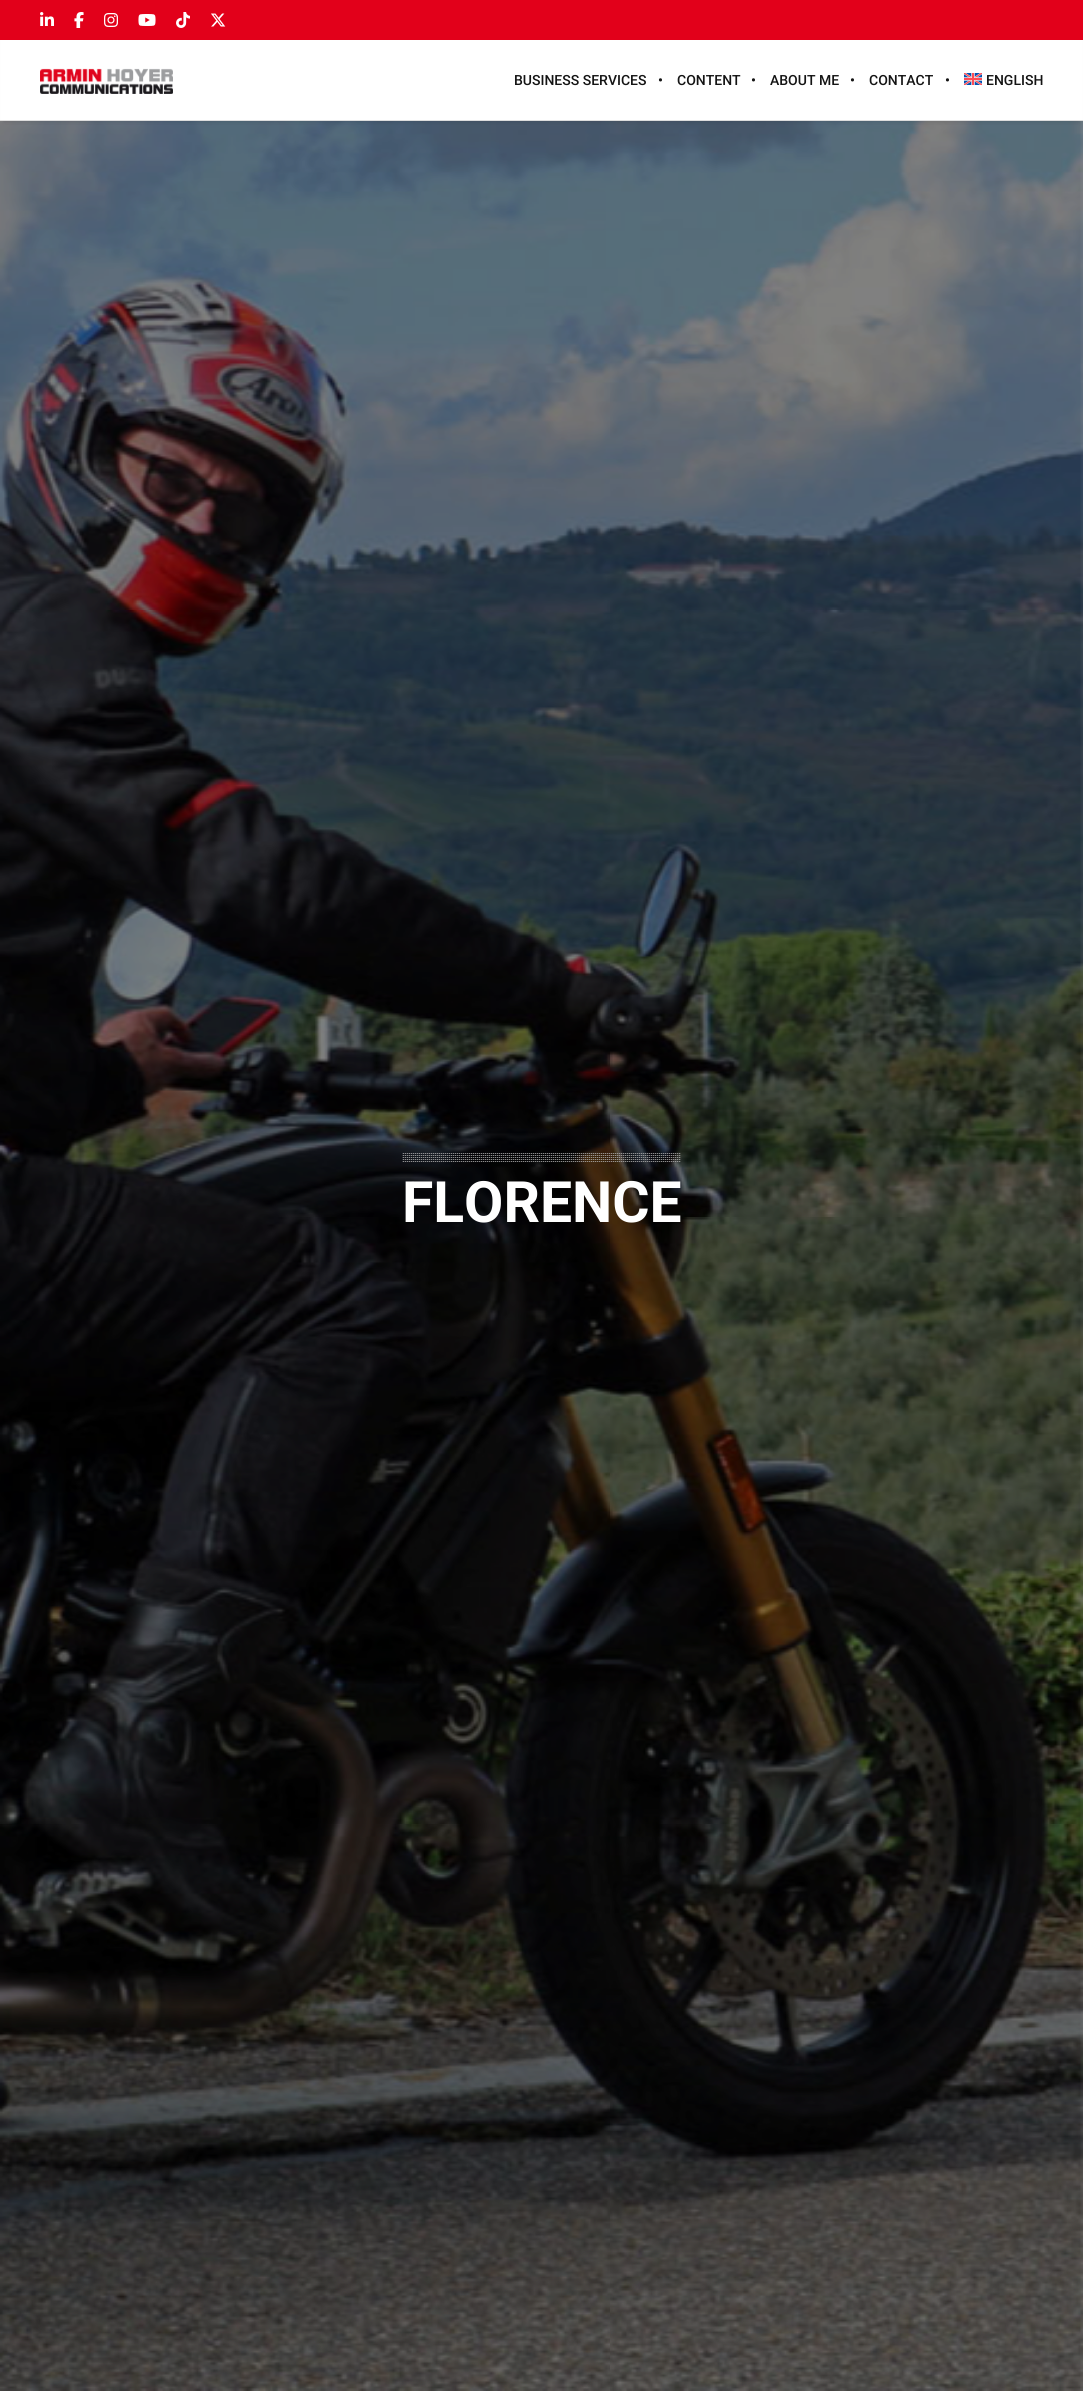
import math
import cairo

surface = cairo.ImageSurface(cairo.FORMAT_RGB24, 1083, 2391)
ctx = cairo.Context(surface)
options = cairo.FontOptions()
options.set_hint_metrics(cairo.HINT_METRICS_OFF)
options.set_hint_style(cairo.HINT_STYLE_NONE)
ctx.set_font_options(options)
ctx.set_miter_limit(4)


def round_rect(x, y, w, h, r):
    ctx.new_sub_path()
    for i, (u, v) in enumerate([(x + w - r, y + h - r), (x + r, y + h - r), (x + r, y + r), (x + w - r, y + r)]):
        ctx.arc(u, v, r, i * math.pi / 2, (i + 1) * math.pi / 2)
    ctx.close_path()


def shadow(x, y, w, h, r, blur, alpha):
    ctx.push_group_with_content(cairo.CONTENT_ALPHA)
    ctx.set_operator(cairo.OPERATOR_SOURCE)
    for i in range(15, -16, -2):
        e = blur * i / 6
        if min(w, h) + 2 * e > 0:
            ctx.set_source_rgba(0, 0, 0, alpha * math.erfc((i - 1) / 8.5) / 2)
            round_rect(x - e, y - e, w + 2 * e, h + 2 * e, max(0, min(r + e + blur * .6, min(w, h) / 2 + e)))
            ctx.fill()
    ctx.mask(ctx.pop_group())


def picture(path, x, y, w, h):
    ctx.save()
    ctx.set_source_surface(cairo.ImageSurface.create_from_png(path), x, y)
    ctx.rectangle(x, y, w, h)
    ctx.fill()
    ctx.restore()


ctx.set_source_rgb(1, 1, 1)
ctx.paint()
picture("img9.png", 0, 121, 1083, 2270)
ctx.set_source_rgb(0, 0, 0)
shadow(4, 9, 1075, 113, 0, 2.5, 0.1)
ctx.set_source_rgb(1, 1, 1)
ctx.rectangle(1, 40, 1081, 80)
ctx.fill()
ctx.set_source_rgb(0.867, 0.867, 0.867)
ctx.rectangle(0, 120, 1083, 1)
ctx.fill()
ctx.set_source_rgb(0.886, 0, 0.102)
ctx.rectangle(0, 0, 1083, 40)
ctx.fill()
picture("img1.png", 40, 12, 14, 14)
picture("img2.png", 74, 12, 10, 16)
picture("img3.png", 104, 13, 14, 14)
picture("img4.png", 138, 14, 18, 12)
picture("img5.png", 176, 12, 14, 16)
picture("img6.png", 211, 13, 15, 14)
picture("img7.png", 40, 68, 133, 26)
ctx.select_font_face("Roboto Medium")
ctx.set_font_size(14)
ctx.set_source_rgb(0.082, 0.082, 0.082)
ctx.move_to(514, 85)
ctx.show_text("BUSINESS SERVICES")
ctx.move_to(658, 85)
ctx.show_text("•")
ctx.move_to(677, 85)
ctx.show_text("CONTENT")
ctx.move_to(751, 85)
ctx.show_text("•")
ctx.move_to(770, 85)
ctx.show_text("ABOUT ME")
ctx.move_to(850, 85)
ctx.show_text("•")
ctx.move_to(869, 85)
ctx.show_text("CONTACT")
ctx.move_to(945, 85)
ctx.show_text("•")
picture("img8.png", 964, 73, 18, 12)
ctx.move_to(986, 85)
ctx.show_text("ENGLISH")
picture("img10.png", 402, 1153, 279, 9)
ctx.select_font_face("Roboto", cairo.FONT_SLANT_NORMAL, cairo.FONT_WEIGHT_BOLD)
ctx.set_font_size(57)
ctx.set_source_rgb(1, 1, 1)
ctx.move_to(402, 1222)
ctx.show_text("FLORENCE")
surface.write_to_png("page.png")
